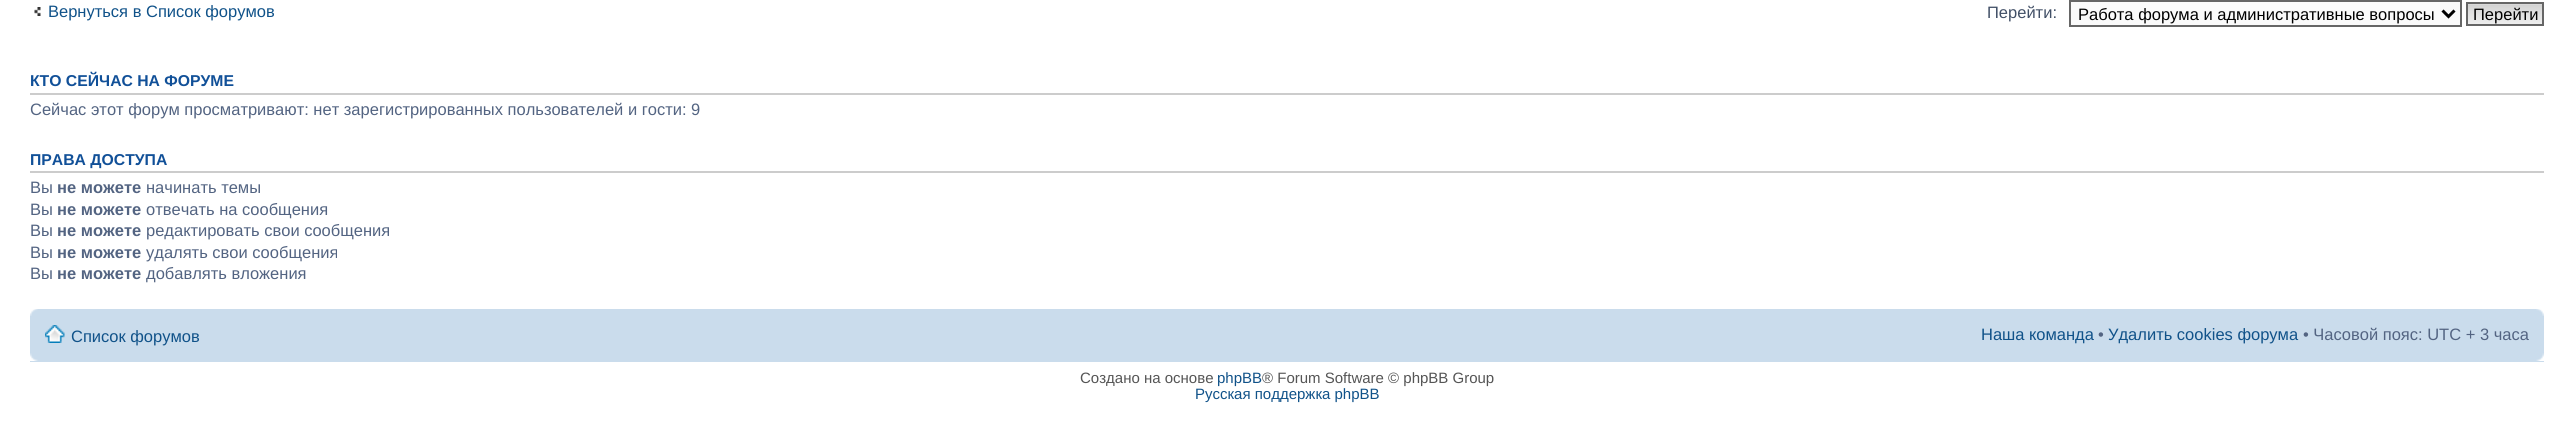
import math
import cairo

surface = cairo.ImageSurface(cairo.FORMAT_RGB24, 2574, 427)
ctx = cairo.Context(surface)
options = cairo.FontOptions()
options.set_hint_metrics(cairo.HINT_METRICS_OFF)
options.set_hint_style(cairo.HINT_STYLE_NONE)
ctx.set_font_options(options)
ctx.set_miter_limit(4)


def picture(path, x, y, w, h):
    ctx.save()
    ctx.set_source_surface(cairo.ImageSurface.create_from_png(path), x, y)
    ctx.rectangle(x, y, w, h)
    ctx.fill()
    ctx.restore()


ctx.set_source_rgb(1, 1, 1)
ctx.paint()
picture("img1.png", 34, 7, 7, 9)
ctx.select_font_face("Liberation Sans")
ctx.set_font_size(16.5)
ctx.set_source_rgb(0.063, 0.322, 0.537)
ctx.move_to(48, 17)
ctx.show_text("Вернуться в Список форумов")
ctx.set_source_rgb(0.259, 0.314, 0.404)
ctx.move_to(1987, 18)
ctx.show_text("Перейти:")
ctx.set_source_rgb(0.98, 0.98, 0.98)
ctx.rectangle(2070, 1, 391, 25)
ctx.fill_preserve()
ctx.set_source_rgb(0.4, 0.4, 0.4)
ctx.stroke()
ctx.new_path()
ctx.move_to(2442.5, 10.5)
ctx.line_to(2448.5, 16.5)
ctx.line_to(2454.5, 10.5)
ctx.set_source_rgb(0, 0, 0)
ctx.set_line_width(3)
ctx.stroke()
ctx.move_to(2078, 20)
ctx.show_text("Работа форума и административные вопросы")
picture("img2.png", 2468, 4, 74, 20)
ctx.rectangle(2467, 3, 76, 22)
ctx.set_source_rgb(0.4, 0.4, 0.4)
ctx.set_line_width(2)
ctx.stroke()
ctx.set_source_rgb(0, 0, 0)
ctx.move_to(2473, 20)
ctx.show_text("Перейти")
ctx.set_source_rgb(0.8, 0.8, 0.8)
ctx.rectangle(30, 93, 2514, 2)
ctx.fill()
ctx.select_font_face("Liberation Sans", cairo.FONT_SLANT_NORMAL, cairo.FONT_WEIGHT_BOLD)
ctx.set_font_size(15.75)
ctx.set_source_rgb(0.067, 0.314, 0.596)
ctx.move_to(30, 86)
ctx.show_text("КТО СЕЙЧАС НА ФОРУМЕ")
ctx.select_font_face("Liberation Sans")
ctx.set_font_size(16.5)
ctx.set_source_rgb(0.325, 0.392, 0.51)
ctx.move_to(30, 115)
ctx.show_text("Сейчас этот форум просматривают: нет зарегистрированных пользователей и гости: 9")
ctx.set_source_rgb(0.8, 0.8, 0.8)
ctx.rectangle(30, 171, 2514, 2)
ctx.fill()
ctx.select_font_face("Liberation Sans", cairo.FONT_SLANT_NORMAL, cairo.FONT_WEIGHT_BOLD)
ctx.set_font_size(15.75)
ctx.set_source_rgb(0.067, 0.314, 0.596)
ctx.move_to(30, 165)
ctx.show_text("ПРАВА ДОСТУПА")
ctx.select_font_face("Liberation Sans")
ctx.set_font_size(16.5)
ctx.set_source_rgb(0.325, 0.392, 0.51)
ctx.move_to(30, 193)
ctx.show_text("Вы")
ctx.select_font_face("Liberation Sans", cairo.FONT_SLANT_NORMAL, cairo.FONT_WEIGHT_BOLD)
ctx.move_to(57, 193)
ctx.show_text("не можете")
ctx.select_font_face("Liberation Sans")
ctx.move_to(146, 193)
ctx.show_text("начинать темы")
ctx.move_to(30, 215)
ctx.show_text("Вы")
ctx.select_font_face("Liberation Sans", cairo.FONT_SLANT_NORMAL, cairo.FONT_WEIGHT_BOLD)
ctx.move_to(57, 215)
ctx.show_text("не можете")
ctx.select_font_face("Liberation Sans")
ctx.move_to(146, 215)
ctx.show_text("отвечать на сообщения")
ctx.move_to(30, 236)
ctx.show_text("Вы")
ctx.select_font_face("Liberation Sans", cairo.FONT_SLANT_NORMAL, cairo.FONT_WEIGHT_BOLD)
ctx.move_to(57, 236)
ctx.show_text("не можете")
ctx.select_font_face("Liberation Sans")
ctx.move_to(146, 236)
ctx.show_text("редактировать свои сообщения")
ctx.move_to(30, 258)
ctx.show_text("Вы")
ctx.select_font_face("Liberation Sans", cairo.FONT_SLANT_NORMAL, cairo.FONT_WEIGHT_BOLD)
ctx.move_to(57, 258)
ctx.show_text("не можете")
ctx.select_font_face("Liberation Sans")
ctx.move_to(146, 258)
ctx.show_text("удалять свои сообщения")
ctx.move_to(30, 279)
ctx.show_text("Вы")
ctx.select_font_face("Liberation Sans", cairo.FONT_SLANT_NORMAL, cairo.FONT_WEIGHT_BOLD)
ctx.move_to(57, 279)
ctx.show_text("не можете")
ctx.select_font_face("Liberation Sans")
ctx.move_to(146, 279)
ctx.show_text("добавлять вложения")
ctx.set_source_rgb(0.792, 0.863, 0.922)
ctx.rectangle(30, 309, 2514, 53)
ctx.fill()
picture("img3.png", 30, 309, 8, 7)
picture("img4.png", 2536, 309, 8, 7)
picture("img5.png", 45, 325, 20, 18)
ctx.set_source_rgb(0.063, 0.322, 0.537)
ctx.move_to(71, 342)
ctx.show_text("Список форумов")
ctx.move_to(1981, 340)
ctx.show_text("Наша команда")
ctx.set_source_rgb(0.325, 0.392, 0.51)
ctx.move_to(2098, 340)
ctx.show_text("•")
ctx.set_source_rgb(0.063, 0.322, 0.537)
ctx.move_to(2108, 340)
ctx.show_text("Удалить cookies форума")
ctx.set_source_rgb(0.325, 0.392, 0.51)
ctx.move_to(2303, 340)
ctx.show_text("• Часовой пояс: UTC + 3 часа")
picture("img6.png", 30, 353, 8, 8)
picture("img7.png", 2536, 353, 8, 8)
ctx.set_font_size(15)
ctx.set_source_rgb(0.333, 0.333, 0.333)
ctx.move_to(1080, 383)
ctx.show_text("Создано на основе")
ctx.set_source_rgb(0.063, 0.322, 0.537)
ctx.move_to(1217, 383)
ctx.show_text("phpBB")
ctx.set_source_rgb(0.333, 0.333, 0.333)
ctx.move_to(1262, 383)
ctx.show_text("® Forum Software © phpBB Group")
ctx.set_source_rgb(0.063, 0.322, 0.537)
ctx.move_to(1195, 399)
ctx.show_text("Русская поддержка phpBB")
surface.write_to_png("page.png")
